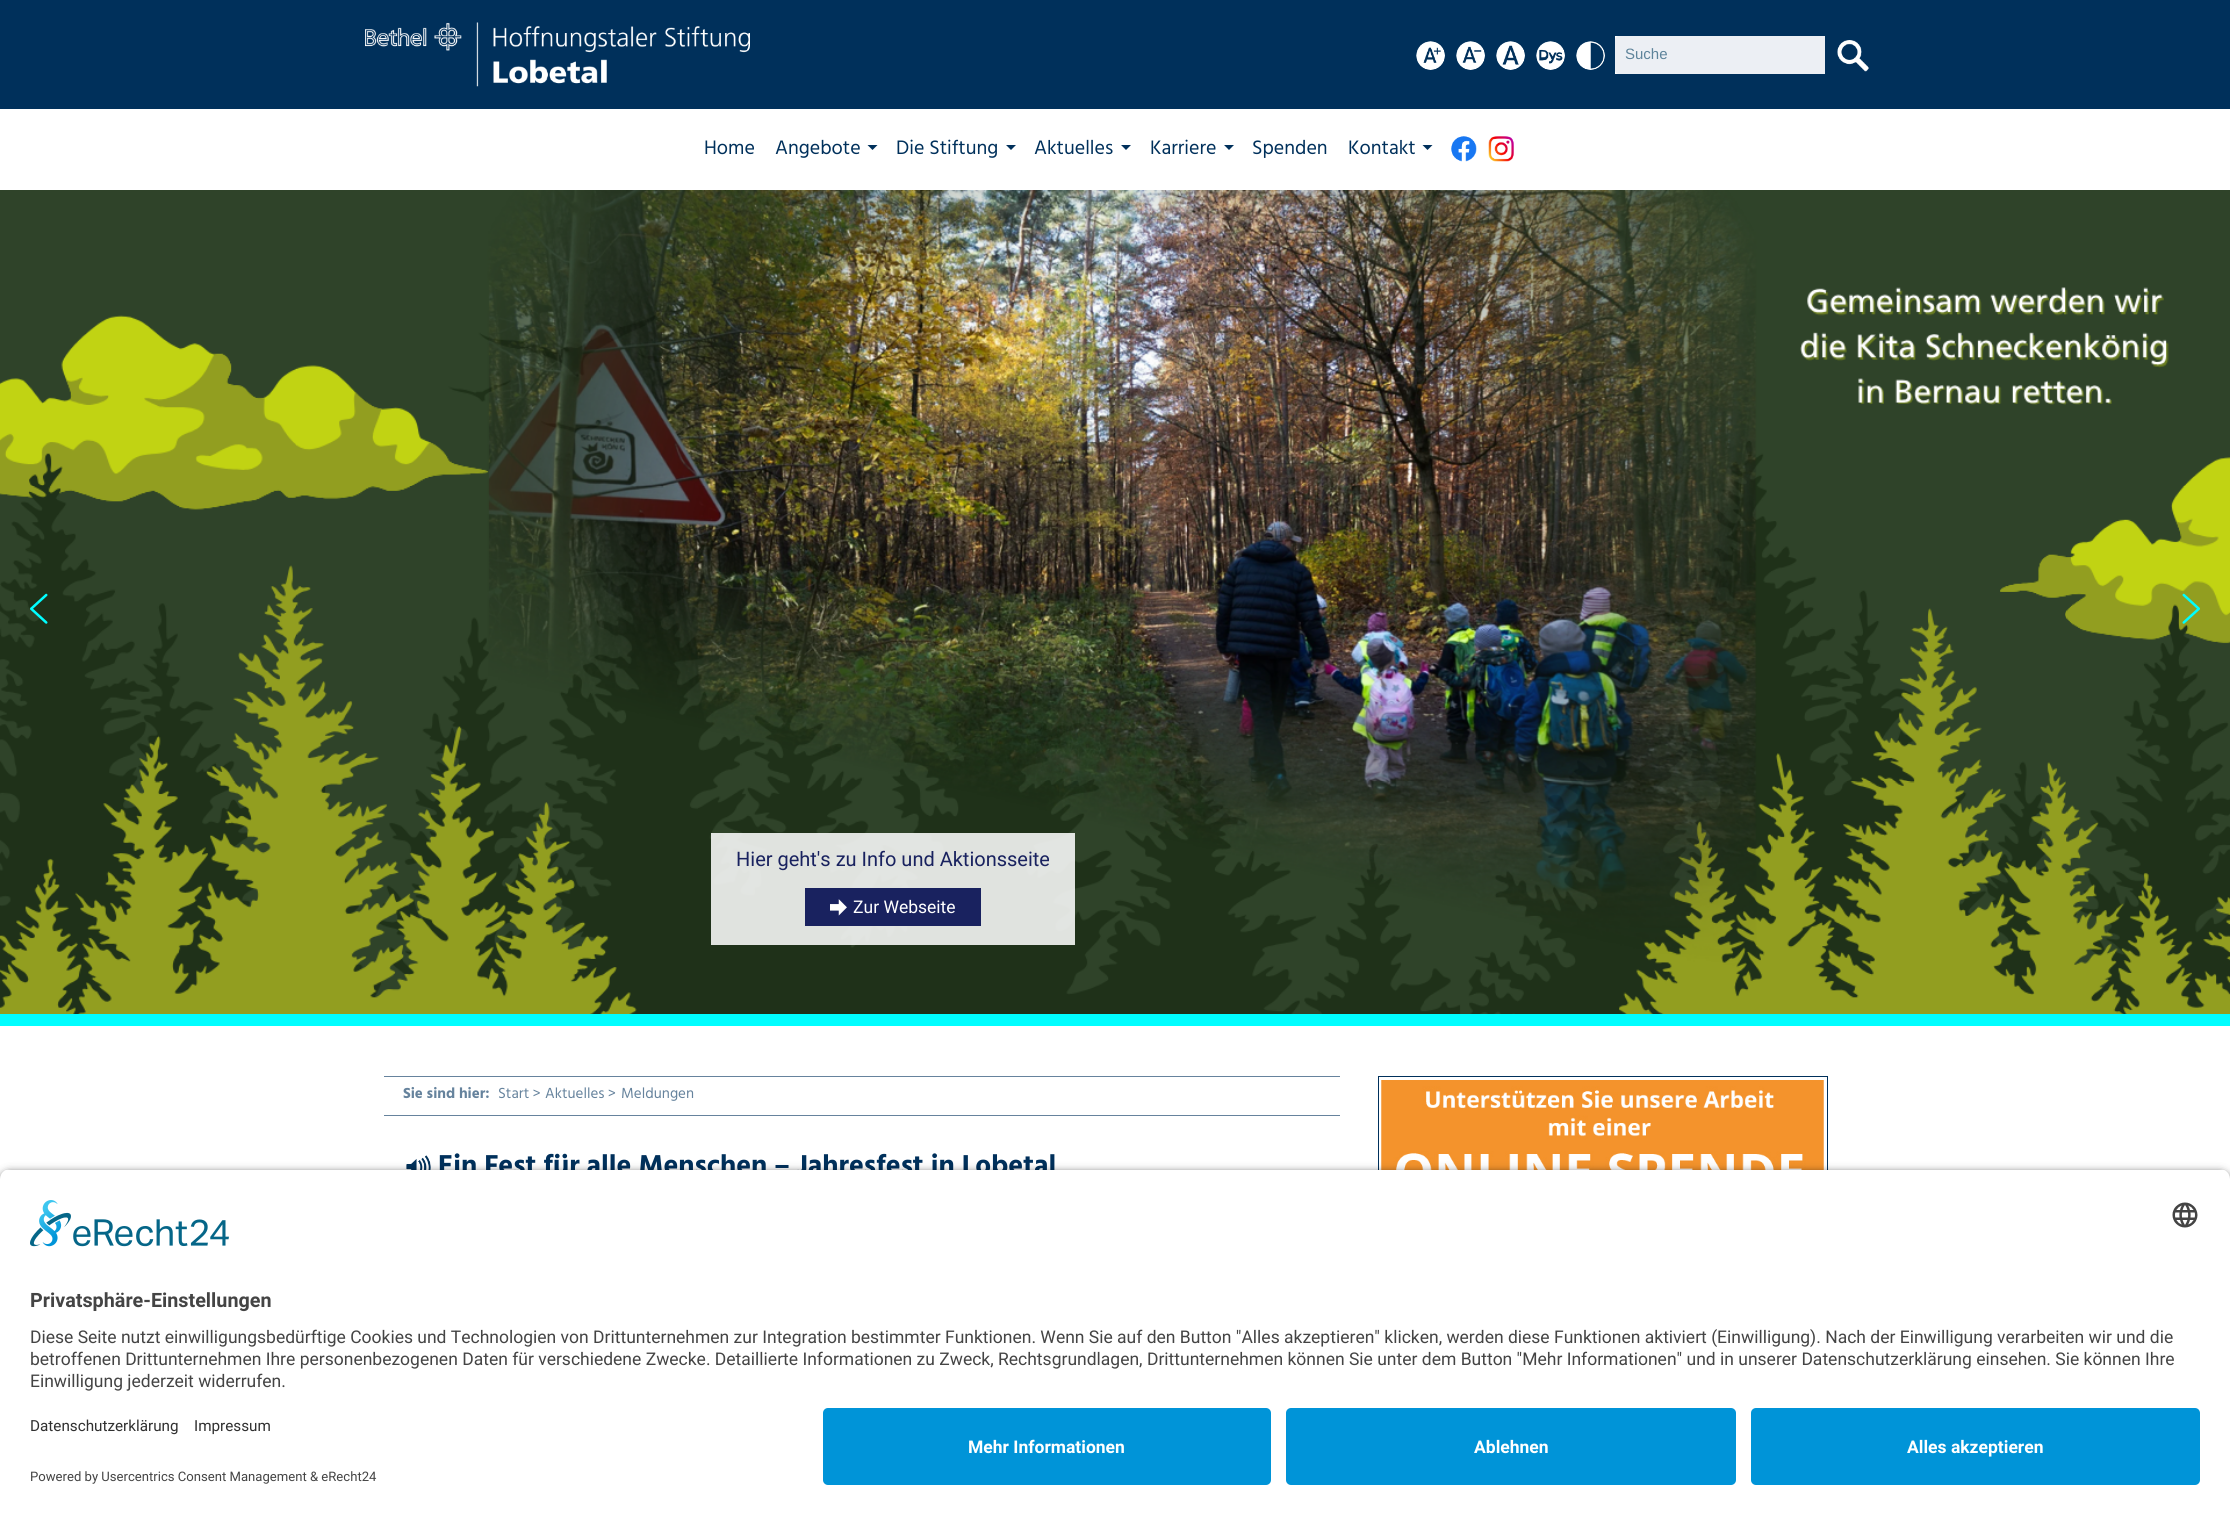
import math
import cairo

surface = cairo.ImageSurface(cairo.FORMAT_RGB24, 2230, 1514)
ctx = cairo.Context(surface)
options = cairo.FontOptions()
options.set_hint_metrics(cairo.HINT_METRICS_OFF)
options.set_hint_style(cairo.HINT_STYLE_NONE)
ctx.set_font_options(options)
ctx.set_miter_limit(4)


def round_rect(x, y, w, h, r):
    ctx.new_sub_path()
    for i, (u, v) in enumerate([(x + w - r, y + h - r), (x + r, y + h - r), (x + r, y + r), (x + w - r, y + r)]):
        ctx.arc(u, v, r, i * math.pi / 2, (i + 1) * math.pi / 2)
    ctx.close_path()


def shadow(x, y, w, h, r, blur, alpha):
    ctx.push_group_with_content(cairo.CONTENT_ALPHA)
    ctx.set_operator(cairo.OPERATOR_SOURCE)
    for i in range(15, -16, -2):
        e = blur * i / 6
        if min(w, h) + 2 * e > 0:
            ctx.set_source_rgba(0, 0, 0, alpha * math.erfc((i - 1) / 8.5) / 2)
            round_rect(x - e, y - e, w + 2 * e, h + 2 * e, max(0, min(r + e + blur * .6, min(w, h) / 2 + e)))
            ctx.fill()
    ctx.mask(ctx.pop_group())


def picture(path, x, y, w, h):
    ctx.save()
    ctx.set_source_surface(cairo.ImageSurface.create_from_png(path), x, y)
    ctx.rectangle(x, y, w, h)
    ctx.fill()
    ctx.restore()


ctx.set_source_rgb(1, 1, 1)
ctx.paint()
ctx.set_source_rgb(0, 0.188, 0.357)
ctx.rectangle(0, 0, 2230, 109)
ctx.fill()
picture("img1.png", 365, 22, 385, 65)
picture("img2.png", 1416, 41, 29, 29)
ctx.arc(1430.5, 55.5, 15, 0, 2 * math.pi)
ctx.set_line_width(1)
ctx.stroke()
picture("img3.png", 1456, 41, 29, 29)
ctx.arc(1470.5, 55.5, 15, 0, 2 * math.pi)
ctx.stroke()
picture("img4.png", 1496, 41, 29, 29)
ctx.arc(1510.5, 55.5, 15, 0, 2 * math.pi)
ctx.stroke()
picture("img5.png", 1536, 41, 29, 29)
ctx.arc(1550.5, 55.5, 15, 0, 2 * math.pi)
ctx.stroke()
picture("img6.png", 1576, 41, 29, 29)
ctx.arc(1590.5, 55.5, 15, 0, 2 * math.pi)
ctx.stroke()
ctx.set_source_rgb(1, 1, 1)
ctx.rectangle(1615, 36, 4, 38)
ctx.fill()
ctx.set_source_rgb(0.925, 0.937, 0.957)
round_rect(1615, 36, 250, 38, 4)
ctx.fill()
ctx.select_font_face("Liberation Sans")
ctx.set_font_size(15)
ctx.set_source_rgb(0.369, 0.518, 0.608)
ctx.move_to(1625, 59)
ctx.show_text("Suche")
ctx.set_source_rgb(0, 0.188, 0.357)
ctx.rectangle(1825, 36, 40, 38)
ctx.fill()
picture("img7.png", 1837, 40, 32, 32)
ctx.select_font_face("Hind")
ctx.set_font_size(20)
ctx.move_to(704, 154)
ctx.show_text("Home")
ctx.move_to(775, 154)
ctx.show_text("Angebote")
ctx.new_path()
ctx.move_to(867.5, 145)
ctx.line_to(877.5, 145)
ctx.line_to(872.5, 150)
ctx.close_path()
ctx.fill()
ctx.move_to(896, 154)
ctx.show_text("Die Stiftung")
ctx.new_path()
ctx.move_to(1006, 145)
ctx.line_to(1016, 145)
ctx.line_to(1011, 150)
ctx.close_path()
ctx.fill()
ctx.move_to(1034, 154)
ctx.show_text("Aktuelles")
ctx.new_path()
ctx.move_to(1121, 145)
ctx.line_to(1131, 145)
ctx.line_to(1126, 150)
ctx.close_path()
ctx.fill()
ctx.move_to(1150, 154)
ctx.show_text("Karriere")
ctx.new_path()
ctx.move_to(1224, 145)
ctx.line_to(1234, 145)
ctx.line_to(1229, 150)
ctx.close_path()
ctx.fill()
ctx.move_to(1252, 154)
ctx.show_text("Spenden")
ctx.move_to(1348, 154)
ctx.show_text("Kontakt")
ctx.new_path()
ctx.move_to(1422.5, 145)
ctx.line_to(1432.5, 145)
ctx.line_to(1427.5, 150)
ctx.close_path()
ctx.fill()
picture("img8.png", 1451, 136, 26, 26)
picture("img9.png", 1488, 136, 26, 26)
picture("img12.png", 0, 190, 2230, 824)
picture("img10.png", 30, 593, 18, 31)
picture("img11.png", 2182, 593, 18, 31)
ctx.set_source_rgba(1, 1, 1, 0.86)
ctx.rectangle(711, 833, 364, 112)
ctx.fill()
ctx.select_font_face("Roboto")
ctx.set_source_rgb(0.098, 0.133, 0.373)
ctx.move_to(736, 866)
ctx.show_text("Hier geht's zu Info und Aktionsseite")
ctx.rectangle(805, 888, 176, 38)
ctx.fill()
picture("img13.png", 830, 899, 17, 17)
ctx.set_font_size(17.5)
ctx.set_source_rgb(1, 1, 1)
ctx.move_to(853, 913)
ctx.show_text("Zur Webseite")
ctx.set_source_rgb(0, 0.996, 1)
ctx.rectangle(0, 1014, 2230, 12)
ctx.fill()
ctx.set_source_rgb(0.4, 0.514, 0.616)
ctx.rectangle(384, 1076, 956, 1)
ctx.fill()
ctx.rectangle(384, 1115, 956, 1)
ctx.fill()
ctx.select_font_face("Hind", cairo.FONT_SLANT_NORMAL, cairo.FONT_WEIGHT_BOLD)
ctx.set_font_size(15)
ctx.move_to(403, 1098)
ctx.show_text("Sie sind hier:")
ctx.select_font_face("Hind")
ctx.move_to(498, 1098)
ctx.show_text("Start >")
ctx.move_to(545, 1098)
ctx.show_text("Aktuelles >")
ctx.move_to(621, 1098)
ctx.show_text("Meldungen")
picture("img14.png", 406, 1155, 25, 15)
ctx.select_font_face("Hind", cairo.FONT_SLANT_NORMAL, cairo.FONT_WEIGHT_BOLD)
ctx.set_font_size(28)
ctx.set_source_rgb(0, 0.188, 0.357)
ctx.move_to(438, 1174)
ctx.show_text("Ein Fest für alle Menschen – Jahresfest in Lobetal")
ctx.rectangle(1378.5, 1076.5, 449, 144)
ctx.stroke()
picture("img15.png", 1381, 1080, 443, 90)
ctx.set_source_rgb(0, 0, 0)
shadow(0, 1173, 2230, 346, 10, 4.5, 0.8)
ctx.save()
ctx.new_path()
ctx.move_to(10, 1169)
ctx.line_to(2220, 1169)
ctx.curve_to(2225.5, 1169, 2230, 1173.5, 2230, 1179)
ctx.line_to(2230, 1398)
ctx.line_to(0, 1398)
ctx.line_to(0, 1179)
ctx.curve_to(0, 1173.5, 4.5, 1169, 10, 1169)
ctx.close_path()
ctx.clip()
ctx.set_source_rgb(1, 1, 1)
ctx.rectangle(0, 1170, 2230, 228)
ctx.fill()
ctx.restore()
picture("img16.png", 30, 1200, 199, 47)
picture("img17.png", 2172, 1202, 26, 26)
ctx.select_font_face("Roboto", cairo.FONT_SLANT_NORMAL, cairo.FONT_WEIGHT_BOLD)
ctx.set_font_size(19.75)
ctx.set_source_rgb(0.267, 0.267, 0.267)
ctx.move_to(30, 1307)
ctx.show_text("Privatsphäre-Einstellungen")
ctx.select_font_face("Roboto")
ctx.set_font_size(17.5)
ctx.move_to(30, 1343)
ctx.show_text("Diese Seite nutzt einwilligungsbedürftige Cookies und Technologien von Drittunternehmen zur Integration bestimmter Funktionen. Wenn Sie auf den Button \"Alles akzeptieren\" klicken, werden diese Funktionen aktiviert (Einwilligung). Nach der Einwilligung verarbeiten wir und die")
ctx.move_to(30, 1365)
ctx.show_text("betroffenen Drittunternehmen Ihre personenbezogenen Daten für verschiedene Zwecke. Detaillierte Informationen zu Zweck, Rechtsgrundlagen, Drittunternehmen können Sie unter dem Button \"Mehr Informationen\" und in unserer Datenschutzerklärung einsehen. Sie können Ihre")
ctx.move_to(30, 1387)
ctx.show_text("Einwilligung jederzeit widerrufen.")
ctx.set_source_rgb(1, 1, 1)
ctx.rectangle(0, 1398, 2230, 116)
ctx.fill()
ctx.set_font_size(15.25)
ctx.set_source_rgb(0.188, 0.188, 0.188)
ctx.move_to(30, 1431)
ctx.show_text("Datenschutzerklärung")
ctx.move_to(194, 1431)
ctx.show_text("Impressum")
ctx.set_font_size(13.1)
ctx.set_source_rgb(0.267, 0.267, 0.267)
ctx.move_to(30, 1481)
ctx.show_text("Powered by Usercentrics Consent Management & eRecht24")
ctx.set_source_rgb(0, 0.58, 0.847)
round_rect(823, 1408, 448, 77, 5)
ctx.fill()
ctx.select_font_face("Roboto", cairo.FONT_SLANT_NORMAL, cairo.FONT_WEIGHT_BOLD)
ctx.set_font_size(17.5)
ctx.set_source_rgb(1, 1, 1)
ctx.move_to(968, 1453)
ctx.show_text("Mehr Informationen")
ctx.set_source_rgb(0, 0.58, 0.847)
round_rect(1286, 1408, 450, 77, 5)
ctx.fill()
ctx.set_source_rgb(1, 1, 1)
ctx.move_to(1474, 1453)
ctx.show_text("Ablehnen")
ctx.set_source_rgb(0, 0.58, 0.847)
round_rect(1751, 1408, 449, 77, 5)
ctx.fill()
ctx.set_source_rgb(1, 1, 1)
ctx.move_to(1907, 1453)
ctx.show_text("Alles akzeptieren")
surface.write_to_png("page.png")
